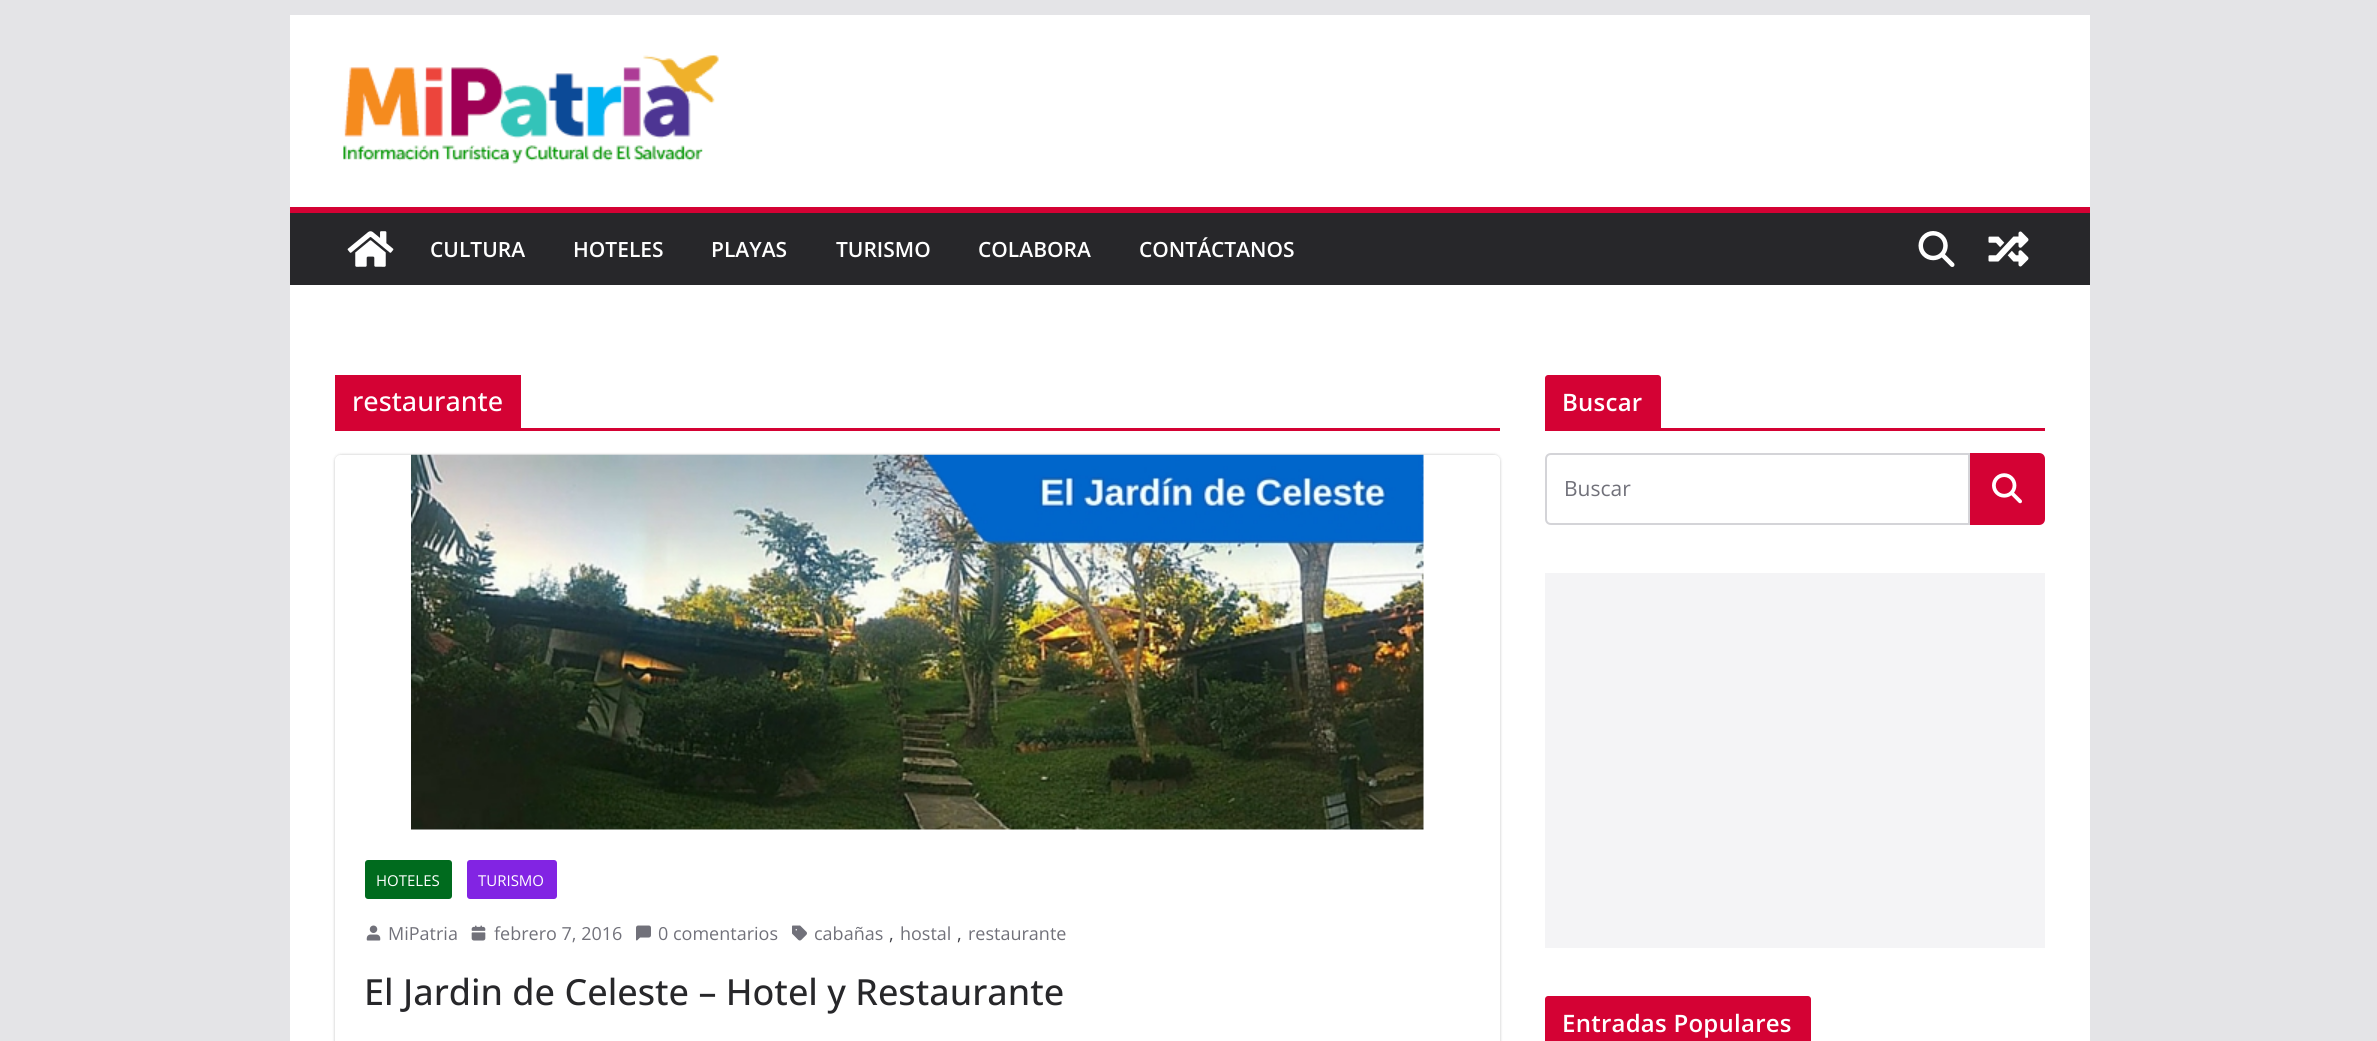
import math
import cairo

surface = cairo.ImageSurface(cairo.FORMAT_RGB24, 2377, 1041)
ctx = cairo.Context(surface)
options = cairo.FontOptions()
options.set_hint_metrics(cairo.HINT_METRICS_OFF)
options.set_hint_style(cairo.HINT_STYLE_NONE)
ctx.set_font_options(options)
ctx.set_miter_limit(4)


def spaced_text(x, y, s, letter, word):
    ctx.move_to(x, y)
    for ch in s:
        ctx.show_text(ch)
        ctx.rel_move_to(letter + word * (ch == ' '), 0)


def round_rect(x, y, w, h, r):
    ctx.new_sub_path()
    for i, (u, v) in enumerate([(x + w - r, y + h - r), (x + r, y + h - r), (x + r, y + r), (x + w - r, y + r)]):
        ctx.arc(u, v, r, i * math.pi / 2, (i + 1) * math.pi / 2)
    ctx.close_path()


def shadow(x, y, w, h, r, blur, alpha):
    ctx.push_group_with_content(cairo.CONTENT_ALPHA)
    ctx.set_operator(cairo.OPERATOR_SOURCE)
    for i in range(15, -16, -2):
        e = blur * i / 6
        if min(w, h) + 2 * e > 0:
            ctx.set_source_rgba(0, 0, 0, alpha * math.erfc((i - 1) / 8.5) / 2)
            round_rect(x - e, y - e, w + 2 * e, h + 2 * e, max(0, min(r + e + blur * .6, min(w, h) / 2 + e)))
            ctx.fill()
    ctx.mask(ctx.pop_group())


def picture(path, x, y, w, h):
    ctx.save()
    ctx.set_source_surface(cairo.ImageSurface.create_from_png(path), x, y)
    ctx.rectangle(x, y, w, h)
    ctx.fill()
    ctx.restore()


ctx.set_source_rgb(0.894, 0.894, 0.906)
ctx.paint()
ctx.set_source_rgb(1, 1, 1)
ctx.rectangle(290, 15, 1800, 192)
ctx.fill()
picture("img1.png", 343, 55, 376, 109)
ctx.set_source_rgb(0.153, 0.153, 0.165)
ctx.rectangle(290, 213, 1800, 72)
ctx.fill()
ctx.set_source_rgb(0.831, 0.008, 0.204)
ctx.rectangle(290, 207, 1800, 6)
ctx.fill()
picture("img2.png", 347, 231, 47, 36)
ctx.select_font_face("Open Sans SemiBold")
ctx.set_font_size(21)
ctx.set_source_rgb(1, 1, 1)
ctx.move_to(430, 257)
ctx.show_text("CULTURA")
ctx.move_to(573, 257)
ctx.show_text("HOTELES")
ctx.move_to(711, 257)
ctx.show_text("PLAYAS")
ctx.move_to(836, 257)
ctx.show_text("TURISMO")
ctx.move_to(978, 257)
ctx.show_text("COLABORA")
ctx.move_to(1139, 257)
ctx.show_text("CONTÁCTANOS")
picture("img3.png", 1918, 231, 37, 36)
picture("img4.png", 1988, 231, 41, 36)
ctx.rectangle(290, 285, 1800, 756)
ctx.fill()
ctx.set_source_rgb(0.831, 0.008, 0.204)
ctx.rectangle(335, 428, 1165, 3)
ctx.fill()
ctx.rectangle(335, 375, 186, 53)
ctx.fill()
ctx.select_font_face("Open Sans Medium")
ctx.set_font_size(27)
ctx.set_source_rgb(1, 1, 1)
ctx.move_to(352, 411)
ctx.show_text("restaurante")
ctx.save()
ctx.set_fill_rule(cairo.FILL_RULE_EVEN_ODD)
ctx.new_path()
ctx.move_to(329, 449)
ctx.line_to(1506, 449)
ctx.line_to(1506, 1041)
ctx.line_to(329, 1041)
ctx.close_path()
ctx.move_to(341, 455)
ctx.line_to(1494, 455)
ctx.curve_to(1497.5, 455, 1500, 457.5, 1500, 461)
ctx.line_to(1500, 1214)
ctx.curve_to(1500, 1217.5, 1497.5, 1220, 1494, 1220)
ctx.line_to(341, 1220)
ctx.curve_to(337.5, 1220, 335, 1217.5, 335, 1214)
ctx.line_to(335, 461)
ctx.curve_to(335, 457.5, 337.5, 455, 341, 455)
ctx.close_path()
ctx.clip()
ctx.set_source_rgb(0, 0, 0)
shadow(335, 455, 1165, 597, 6, 1.5, 0.24)
ctx.restore()
picture("img5.png", 411, 454, 1013, 376)
ctx.set_source_rgb(0, 0.42, 0.118)
round_rect(365, 860, 87, 39, 3)
ctx.fill()
ctx.select_font_face("Open Sans")
ctx.set_font_size(15)
ctx.set_source_rgb(1, 1, 1)
ctx.move_to(376, 886)
ctx.show_text("HOTELES")
ctx.set_source_rgb(0.51, 0.141, 0.89)
round_rect(467, 860, 90, 39, 3)
ctx.fill()
ctx.set_source_rgb(1, 1, 1)
ctx.move_to(478, 886)
ctx.show_text("TURISMO")
picture("img6.png", 366, 925, 15, 16)
ctx.set_font_size(18)
ctx.set_source_rgb(0.443, 0.443, 0.478)
ctx.move_to(388, 940)
ctx.show_text("MiPatria")
picture("img7.png", 471, 925, 15, 16)
ctx.move_to(494, 940)
ctx.show_text("febrero 7, 2016")
picture("img8.png", 636, 925, 15, 16)
ctx.move_to(658, 940)
ctx.show_text("0 comentarios")
picture("img9.png", 792, 925, 15, 16)
ctx.move_to(814, 940)
ctx.show_text("cabañas")
ctx.set_source_rgb(0.247, 0.247, 0.275)
ctx.move_to(889, 940)
ctx.show_text(",")
ctx.set_source_rgb(0.443, 0.443, 0.478)
ctx.move_to(900, 940)
ctx.show_text("hostal")
ctx.set_source_rgb(0.247, 0.247, 0.275)
ctx.move_to(957, 940)
ctx.show_text(",")
ctx.set_source_rgb(0.443, 0.443, 0.478)
ctx.move_to(968, 940)
ctx.show_text("restaurante")
ctx.select_font_face("Open Sans Medium")
ctx.set_font_size(36)
ctx.set_source_rgb(0.153, 0.153, 0.165)
ctx.move_to(364, 1005)
ctx.show_text("El Jardin de Celeste – Hotel y Restaurante")
ctx.set_source_rgb(0.831, 0.008, 0.204)
ctx.rectangle(1545, 428, 500, 3)
ctx.fill()
ctx.new_path()
ctx.move_to(1548, 375)
ctx.line_to(1658, 375)
ctx.curve_to(1659.5, 375, 1661, 376.5, 1661, 378)
ctx.line_to(1661, 428)
ctx.line_to(1545, 428)
ctx.line_to(1545, 378)
ctx.curve_to(1545, 376.5, 1546.5, 375, 1548, 375)
ctx.close_path()
ctx.fill()
ctx.select_font_face("Open Sans SemiBold")
ctx.set_font_size(24)
ctx.set_source_rgb(1, 1, 1)
spaced_text(1562, 411, "Buscar", 0.25, 0)
ctx.new_path()
ctx.move_to(1551, 454)
ctx.line_to(1969, 454)
ctx.line_to(1969, 524)
ctx.line_to(1551, 524)
ctx.curve_to(1548, 524, 1546, 522, 1546, 519)
ctx.line_to(1546, 459)
ctx.curve_to(1546, 456, 1548, 454, 1551, 454)
ctx.close_path()
ctx.set_source_rgb(0.831, 0.831, 0.847)
ctx.stroke()
ctx.select_font_face("Open Sans")
ctx.set_font_size(21)
ctx.set_source_rgb(0.443, 0.443, 0.478)
ctx.move_to(1564, 496)
ctx.show_text("Buscar")
ctx.set_source_rgb(0.831, 0.008, 0.204)
ctx.new_path()
ctx.move_to(1971, 454)
ctx.line_to(2039, 454)
ctx.curve_to(2042, 454, 2044, 456, 2044, 459)
ctx.line_to(2044, 519)
ctx.curve_to(2044, 522, 2042, 524, 2039, 524)
ctx.line_to(1971, 524)
ctx.close_path()
ctx.fill_preserve()
ctx.stroke()
picture("img10.png", 1992, 473, 30, 31)
ctx.set_source_rgb(0.957, 0.957, 0.961)
ctx.rectangle(1545, 573, 500, 375)
ctx.fill()
ctx.set_source_rgb(0.831, 0.008, 0.204)
ctx.new_path()
ctx.move_to(1548, 996)
ctx.line_to(1808, 996)
ctx.curve_to(1809.5, 996, 1811, 997.5, 1811, 999)
ctx.line_to(1811, 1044)
ctx.line_to(1545, 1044)
ctx.line_to(1545, 999)
ctx.curve_to(1545, 997.5, 1546.5, 996, 1548, 996)
ctx.close_path()
ctx.fill()
ctx.select_font_face("Open Sans SemiBold")
ctx.set_font_size(24)
ctx.set_source_rgb(1, 1, 1)
spaced_text(1562, 1032, "Entradas Populares", 0.25, 0)
surface.write_to_png("page.png")
